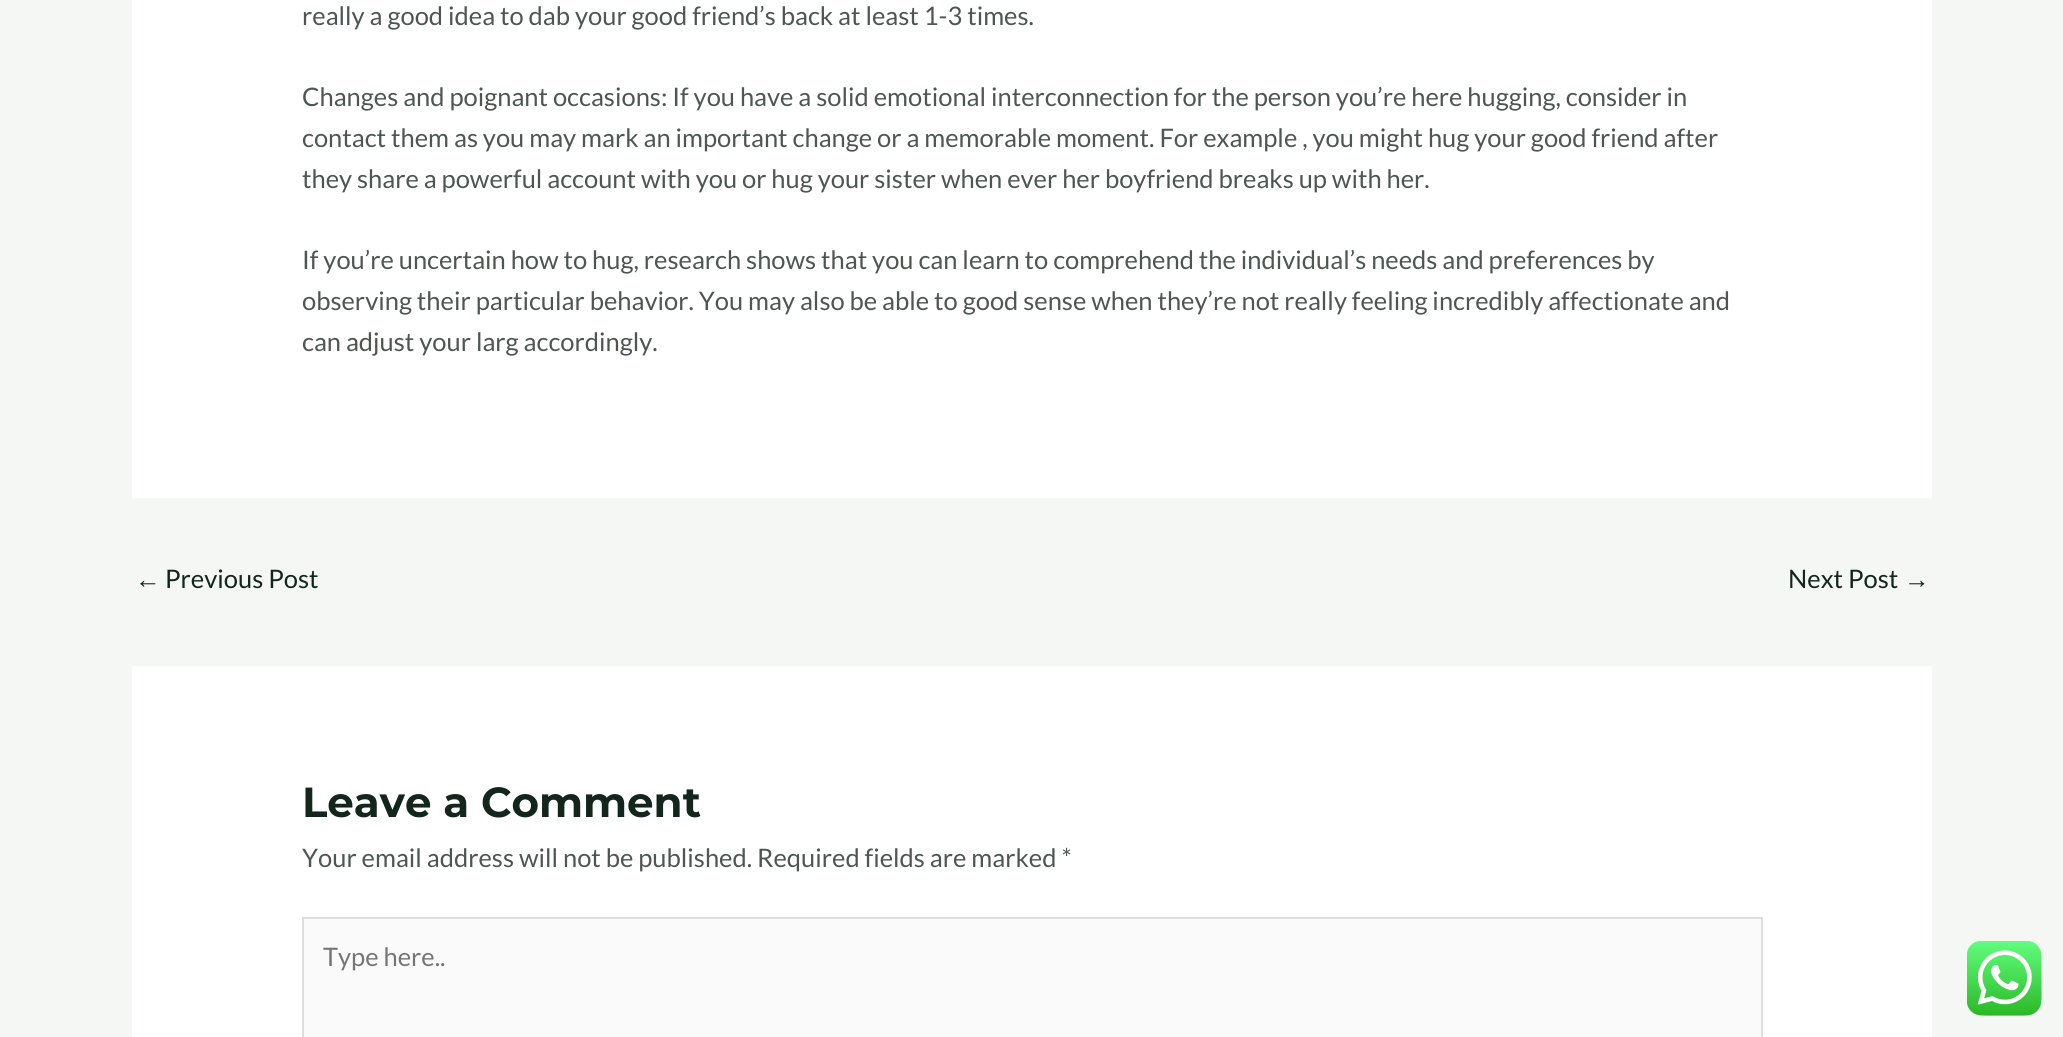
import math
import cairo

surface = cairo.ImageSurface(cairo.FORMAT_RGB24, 2063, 1037)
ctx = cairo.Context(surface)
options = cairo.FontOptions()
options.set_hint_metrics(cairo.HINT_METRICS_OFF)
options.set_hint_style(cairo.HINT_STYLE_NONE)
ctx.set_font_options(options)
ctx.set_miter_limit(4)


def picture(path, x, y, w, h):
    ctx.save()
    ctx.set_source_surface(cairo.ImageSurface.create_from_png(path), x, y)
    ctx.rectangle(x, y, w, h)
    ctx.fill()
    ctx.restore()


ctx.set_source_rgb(0.957, 0.965, 0.957)
ctx.paint()
ctx.set_source_rgb(1, 1, 1)
ctx.rectangle(132, 0, 1800, 498)
ctx.fill()
ctx.select_font_face("Lato")
ctx.set_font_size(25.5)
ctx.set_source_rgb(0.306, 0.337, 0.322)
ctx.move_to(302, 25)
ctx.show_text("really a good idea to dab your good friend’s back at least 1-3 times.")
ctx.move_to(302, 106)
ctx.show_text("Changes and poignant occasions: If you have a solid emotional interconnection for the person you’re here hugging, consider in")
ctx.move_to(302, 147)
ctx.show_text("contact them as you may mark an important change or a memorable moment. For example , you might hug your good friend after")
ctx.move_to(302, 188)
ctx.show_text("they share a powerful account with you or hug your sister when ever her boyfriend breaks up with her.")
ctx.move_to(302, 269)
ctx.show_text("If you’re uncertain how to hug, research shows that you can learn to comprehend the individual’s needs and preferences by")
ctx.move_to(302, 310)
ctx.show_text("observing their particular behavior. You may also be able to good sense when they’re not really feeling incredibly affectionate and")
ctx.move_to(302, 351)
ctx.show_text("can adjust your larg accordingly.")
ctx.select_font_face("Liberation Sans")
ctx.set_source_rgb(0.078, 0.149, 0.11)
ctx.move_to(135, 588)
ctx.show_text("←")
ctx.select_font_face("Lato")
ctx.move_to(165, 588)
ctx.show_text("Previous Post")
ctx.move_to(1788, 588)
ctx.show_text("Next Post")
ctx.select_font_face("Liberation Sans")
ctx.move_to(1904, 588)
ctx.show_text("→")
ctx.set_source_rgb(1, 1, 1)
ctx.rectangle(132, 666, 1800, 371)
ctx.fill()
ctx.select_font_face("Montserrat Thin")
ctx.set_font_size(42)
ctx.set_source_rgb(0.078, 0.149, 0.11)
ctx.move_to(302, 817)
ctx.show_text("Leave a Comment")
ctx.select_font_face("Lato")
ctx.set_font_size(25.5)
ctx.set_source_rgb(0.306, 0.337, 0.322)
ctx.move_to(302, 867)
ctx.show_text("Your email address will not be published. Required fields are marked *")
ctx.set_source_rgb(0.98, 0.98, 0.98)
ctx.rectangle(303, 918, 1459, 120)
ctx.fill_preserve()
ctx.set_source_rgb(0.867, 0.867, 0.867)
ctx.stroke()
ctx.set_source_rgb(0.459, 0.459, 0.459)
ctx.move_to(323, 966)
ctx.show_text("Type here..")
picture("img1.png", 1967, 941, 75, 75)
surface.write_to_png("page.png")
